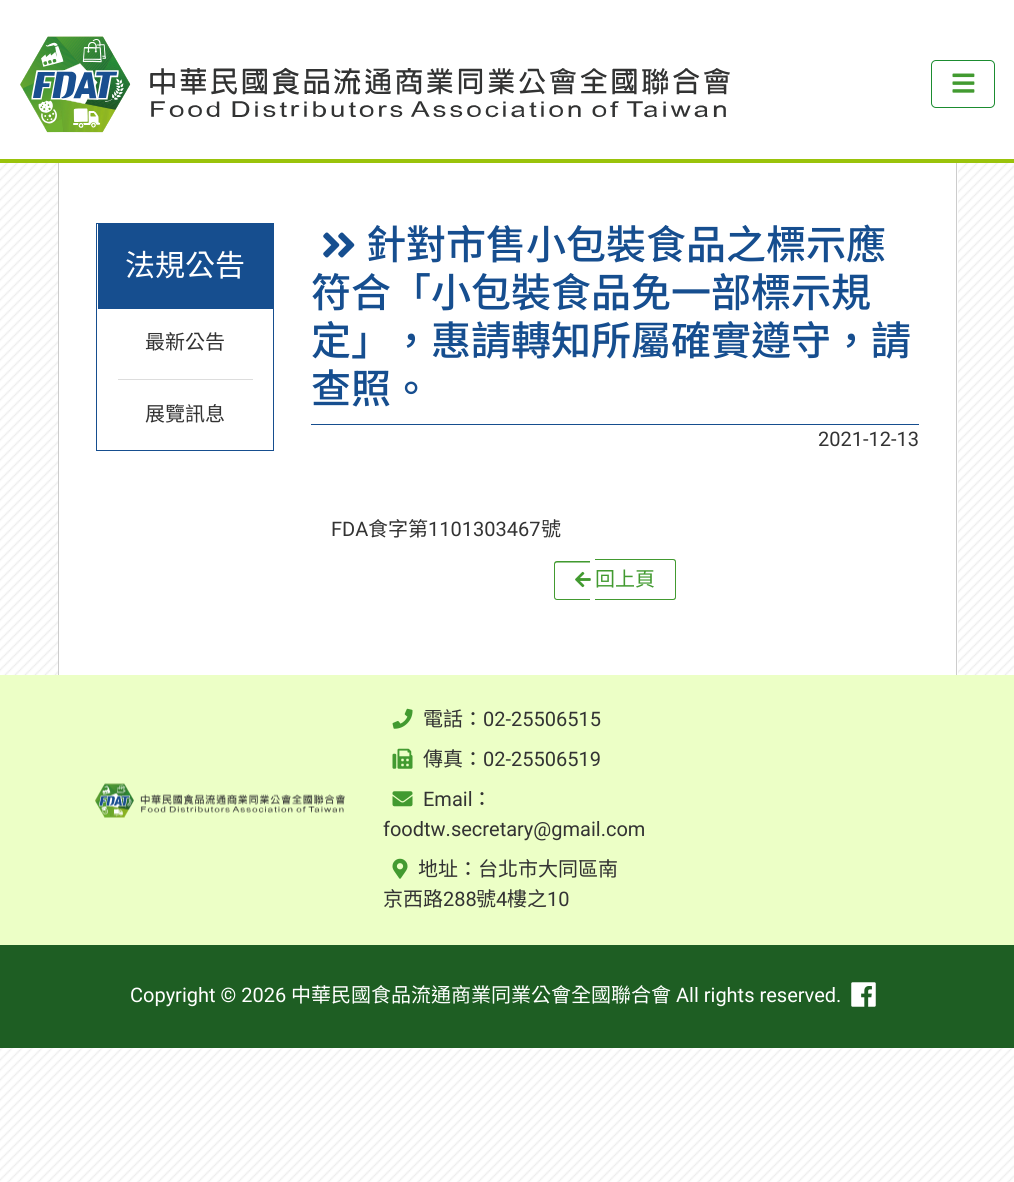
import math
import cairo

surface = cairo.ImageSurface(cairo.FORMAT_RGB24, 1014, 1182)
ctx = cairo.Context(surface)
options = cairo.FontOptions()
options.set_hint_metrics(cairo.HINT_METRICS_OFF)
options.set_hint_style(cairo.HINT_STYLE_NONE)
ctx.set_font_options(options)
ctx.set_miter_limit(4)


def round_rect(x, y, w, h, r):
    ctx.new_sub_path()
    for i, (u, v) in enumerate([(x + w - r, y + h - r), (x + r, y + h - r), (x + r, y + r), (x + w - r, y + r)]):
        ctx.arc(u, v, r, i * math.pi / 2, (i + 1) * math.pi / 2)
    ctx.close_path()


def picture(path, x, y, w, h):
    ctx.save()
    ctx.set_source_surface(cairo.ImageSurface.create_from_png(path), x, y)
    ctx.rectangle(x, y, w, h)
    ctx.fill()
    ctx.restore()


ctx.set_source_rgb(1, 1, 1)
ctx.paint()
picture("img1.png", 0, 163, 1014, 1019)
ctx.set_source_rgb(0.604, 0.765, 0.043)
ctx.rectangle(0, 159, 1014, 4)
ctx.fill()
picture("img2.png", 20, 36, 710, 97)
round_rect(931.5, 60.5, 63, 47, 4.5)
ctx.set_source_rgb(0.106, 0.549, 0.188)
ctx.set_line_width(1)
ctx.stroke()
picture("img3.png", 952, 73, 23, 20)
ctx.set_source_rgb(1, 1, 1)
ctx.rectangle(59, 163, 899, 512)
ctx.fill()
ctx.set_source_rgb(0.8, 0.8, 0.8)
ctx.rectangle(956, 163, 1, 512)
ctx.fill()
ctx.rectangle(58, 163, 1, 512)
ctx.fill()
ctx.rectangle(96.5, 223.5, 177, 227)
ctx.set_source_rgb(0.086, 0.306, 0.561)
ctx.stroke()
ctx.rectangle(98, 224, 175, 85)
ctx.fill()
ctx.select_font_face("Noto Sans TC")
ctx.set_font_size(30)
ctx.set_source_rgb(1, 1, 1)
ctx.move_to(125, 276)
ctx.show_text("法規公告")
ctx.set_source_rgb(0.867, 0.867, 0.867)
ctx.rectangle(118, 379, 135, 1)
ctx.fill()
ctx.set_font_size(20)
ctx.set_source_rgb(0.2, 0.2, 0.2)
ctx.move_to(145, 349)
ctx.show_text("最新公告")
ctx.move_to(145, 421)
ctx.show_text("展覽訊息")
ctx.set_source_rgb(0.086, 0.306, 0.561)
ctx.rectangle(311, 424, 608, 1)
ctx.fill()
picture("img4.png", 323, 232, 32, 26)
ctx.select_font_face("Noto Sans TC Medium")
ctx.set_font_size(40)
ctx.move_to(366, 259)
ctx.show_text("針對市售小包裝食品之標示應")
ctx.move_to(311, 307)
ctx.show_text("符合「小包裝食品免一部標示規")
ctx.move_to(311, 355)
ctx.show_text("定」，惠請轉知所屬確實遵守，請")
ctx.move_to(311, 403)
ctx.show_text("查照。")
ctx.select_font_face("Roboto")
ctx.set_font_size(20)
ctx.set_source_rgb(0.2, 0.2, 0.2)
ctx.move_to(818, 446)
ctx.show_text("2021-12-13")
ctx.move_to(331, 536)
ctx.show_text("FDA")
ctx.select_font_face("Noto Sans TC")
ctx.move_to(368, 536)
ctx.show_text("食字第")
ctx.select_font_face("Roboto")
ctx.move_to(428, 536)
ctx.show_text("1101303467")
ctx.select_font_face("Noto Sans TC")
ctx.move_to(541, 536)
ctx.show_text("號")
ctx.set_source_rgb(0.259, 0.604, 0.188)
ctx.set_fill_rule(cairo.FILL_RULE_EVEN_ODD)
ctx.new_path()
ctx.move_to(557, 561)
ctx.line_to(590, 561)
ctx.line_to(590, 600)
ctx.line_to(557, 600)
ctx.curve_to(555, 600, 554, 598.5, 554, 597)
ctx.line_to(554, 564)
ctx.curve_to(554, 562.5, 555, 561, 557, 561)
ctx.close_path()
ctx.move_to(557, 562.5)
ctx.line_to(590, 562.5)
ctx.line_to(590, 599)
ctx.line_to(557, 599)
ctx.curve_to(556, 599, 555, 598, 555, 597)
ctx.line_to(555, 564)
ctx.curve_to(555, 563.5, 556, 562.5, 557, 562.5)
ctx.close_path()
ctx.fill()
picture("img5.png", 575, 571, 16, 17)
ctx.new_path()
ctx.move_to(595, 559)
ctx.line_to(673, 559)
ctx.curve_to(675, 559, 676, 560, 676, 562)
ctx.line_to(676, 597)
ctx.curve_to(676, 599, 675, 600, 673, 600)
ctx.line_to(595, 600)
ctx.close_path()
ctx.move_to(595, 560)
ctx.line_to(673, 560)
ctx.curve_to(674, 560, 675, 561, 675, 562)
ctx.line_to(675, 597)
ctx.curve_to(675, 598, 674, 599, 673, 599)
ctx.line_to(595, 599)
ctx.close_path()
ctx.fill()
ctx.move_to(595, 586)
ctx.show_text("回上頁")
ctx.set_source_rgb(0.925, 1, 0.776)
ctx.rectangle(0, 675, 1014, 270)
ctx.fill()
picture("img6.png", 95, 783, 250, 35)
picture("img7.png", 392, 708, 21, 21)
ctx.set_source_rgb(0.2, 0.2, 0.2)
ctx.move_to(423, 726)
ctx.show_text("電話：")
ctx.select_font_face("Roboto")
ctx.move_to(483, 726)
ctx.show_text("02-25506515")
picture("img8.png", 392, 748, 21, 21)
ctx.select_font_face("Noto Sans TC")
ctx.move_to(423, 766)
ctx.show_text("傳真：")
ctx.select_font_face("Roboto")
ctx.move_to(483, 766)
ctx.show_text("02-25506519")
picture("img9.png", 392, 791, 21, 16)
ctx.move_to(423, 806)
ctx.show_text("Email")
ctx.select_font_face("Noto Sans TC")
ctx.move_to(472, 806)
ctx.show_text("：")
ctx.select_font_face("Roboto")
ctx.move_to(383, 836)
ctx.show_text("foodtw.secretary@gmail.com")
picture("img10.png", 392, 858, 16, 21)
ctx.select_font_face("Noto Sans TC")
ctx.move_to(418, 876)
ctx.show_text("地址：台北市大同區南")
ctx.move_to(383, 906)
ctx.show_text("京西路")
ctx.select_font_face("Roboto")
ctx.move_to(443, 906)
ctx.show_text("288")
ctx.select_font_face("Noto Sans TC")
ctx.move_to(476, 906)
ctx.show_text("號")
ctx.select_font_face("Roboto")
ctx.move_to(496, 906)
ctx.show_text("4")
ctx.select_font_face("Noto Sans TC")
ctx.move_to(507, 906)
ctx.show_text("樓之")
ctx.select_font_face("Roboto")
ctx.move_to(547, 906)
ctx.show_text("10")
ctx.set_source_rgb(0.118, 0.369, 0.137)
ctx.rectangle(0, 945, 1014, 103)
ctx.fill()
ctx.set_source_rgb(1, 1, 1)
ctx.move_to(130, 1002)
ctx.show_text("Copyright © 2026")
ctx.select_font_face("Noto Sans TC")
ctx.move_to(291, 1002)
ctx.show_text("中華民國食品流通商業同業公會全國聯合會")
ctx.select_font_face("Roboto")
ctx.move_to(676, 1002)
ctx.show_text("All rights reserved.")
picture("img11.png", 851, 982, 25, 25)
surface.write_to_png("page.png")
